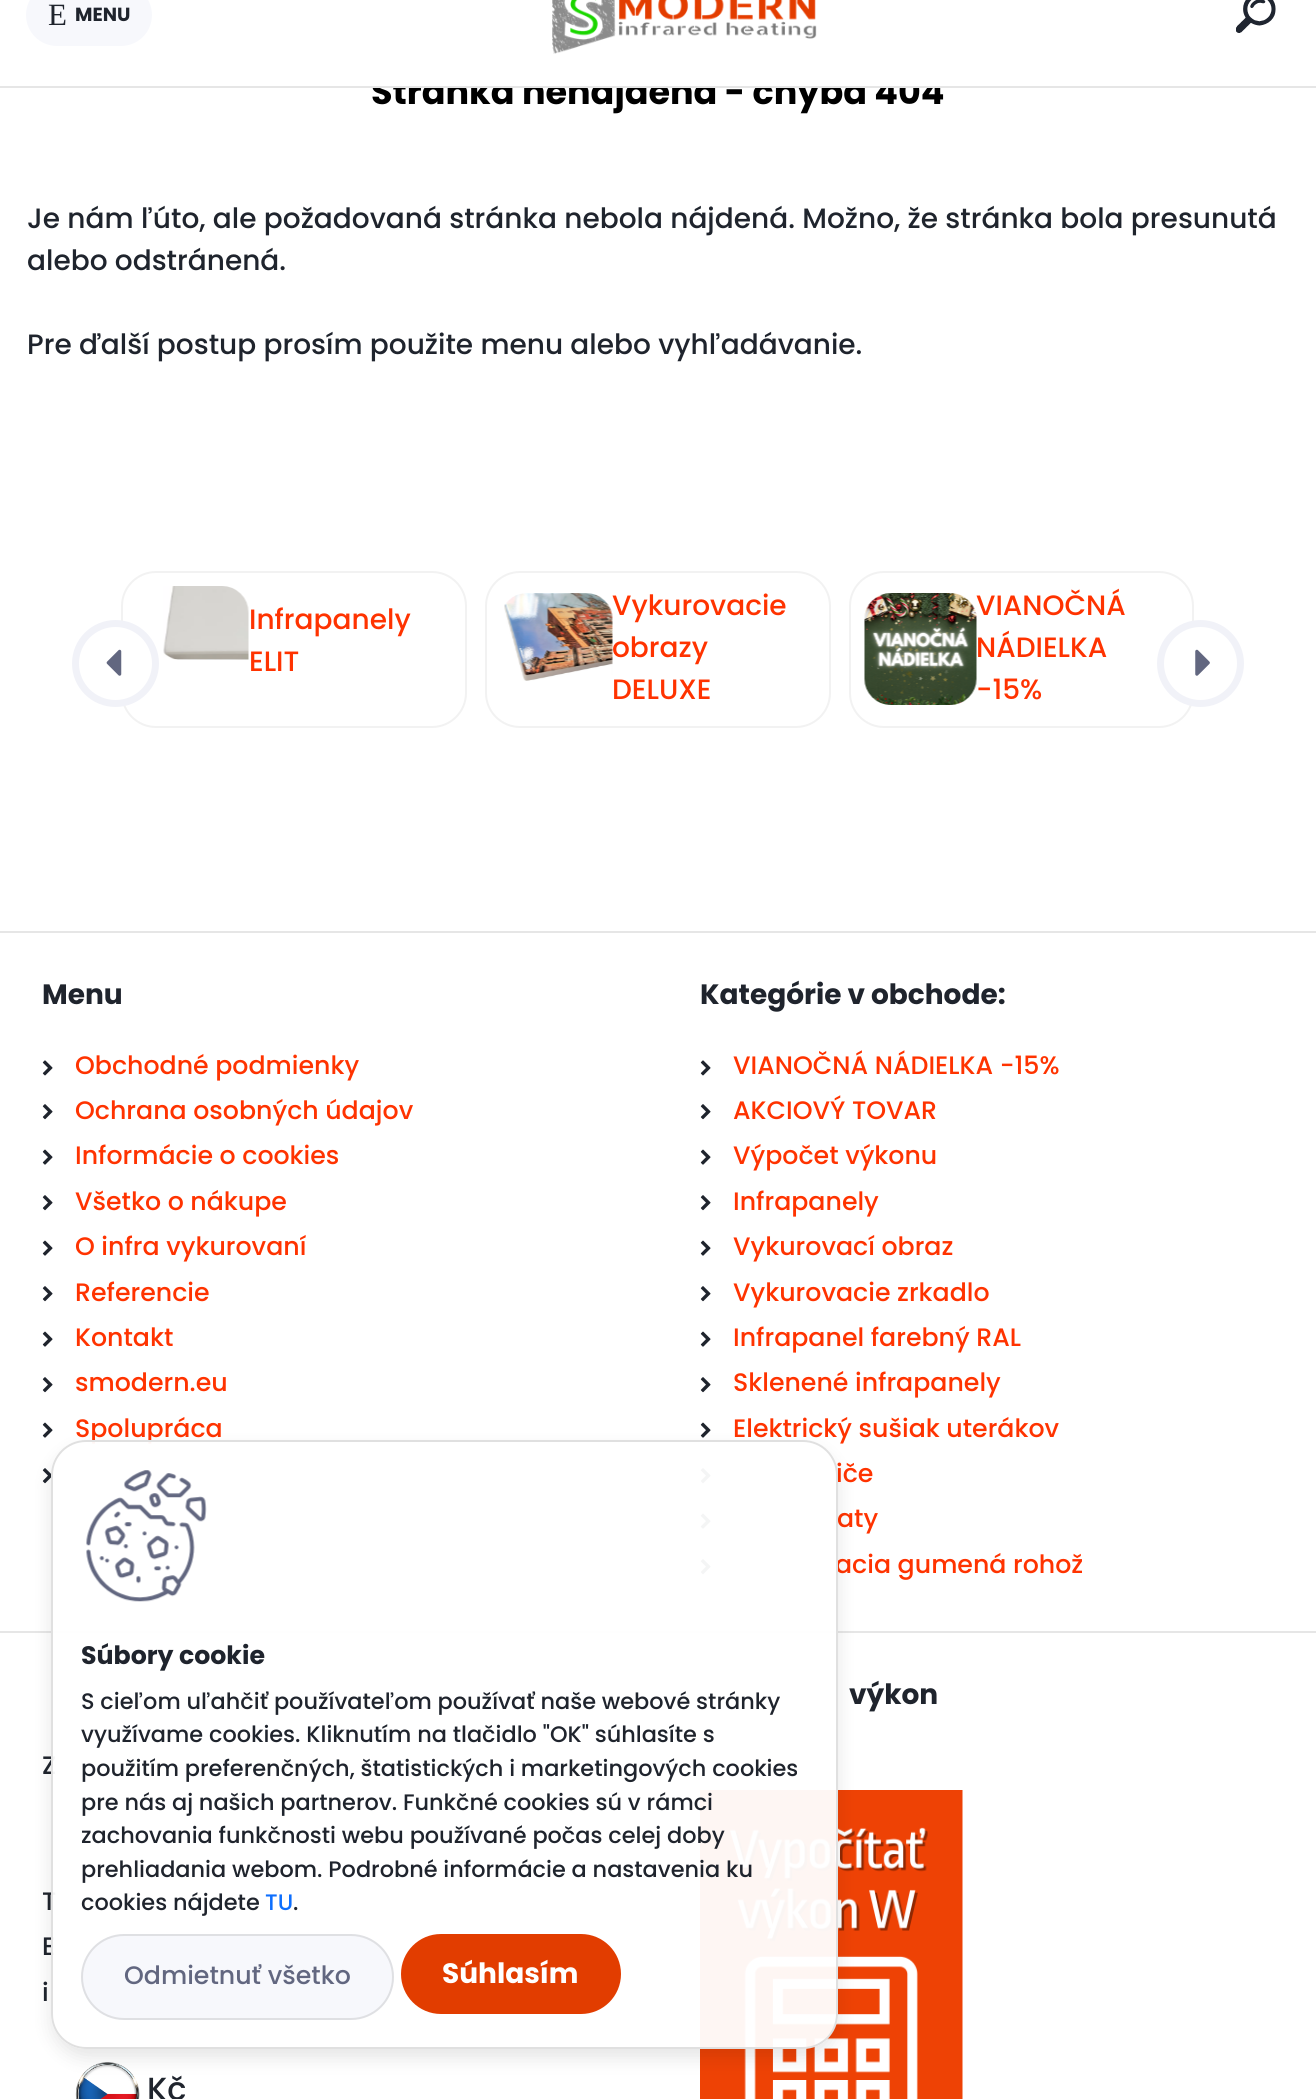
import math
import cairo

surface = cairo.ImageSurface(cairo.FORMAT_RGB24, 1316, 2099)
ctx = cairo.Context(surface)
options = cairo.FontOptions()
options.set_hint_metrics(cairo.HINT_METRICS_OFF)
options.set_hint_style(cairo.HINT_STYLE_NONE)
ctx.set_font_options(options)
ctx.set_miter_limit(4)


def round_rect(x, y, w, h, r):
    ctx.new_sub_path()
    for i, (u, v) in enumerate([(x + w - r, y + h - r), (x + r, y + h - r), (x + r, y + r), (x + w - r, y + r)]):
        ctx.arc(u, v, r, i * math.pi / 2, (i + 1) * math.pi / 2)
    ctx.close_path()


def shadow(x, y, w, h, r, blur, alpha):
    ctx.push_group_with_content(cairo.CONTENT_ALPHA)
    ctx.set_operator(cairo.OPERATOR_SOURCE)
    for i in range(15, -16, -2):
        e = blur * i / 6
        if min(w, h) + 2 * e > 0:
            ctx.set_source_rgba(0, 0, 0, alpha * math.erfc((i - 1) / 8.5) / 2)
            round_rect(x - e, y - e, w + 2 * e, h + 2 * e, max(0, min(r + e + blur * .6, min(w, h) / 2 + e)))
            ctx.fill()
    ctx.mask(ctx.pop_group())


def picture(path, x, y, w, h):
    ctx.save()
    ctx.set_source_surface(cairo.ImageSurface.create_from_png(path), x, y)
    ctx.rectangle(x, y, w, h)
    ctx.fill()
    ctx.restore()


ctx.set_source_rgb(1, 1, 1)
ctx.paint()
ctx.select_font_face("Poppins", cairo.FONT_SLANT_NORMAL, cairo.FONT_WEIGHT_BOLD)
ctx.set_font_size(35)
ctx.set_source_rgb(0, 0, 0)
ctx.move_to(371, 104)
ctx.show_text("Stránka nenájdená - chyba 404")
ctx.set_source_rgb(1, 1, 1)
ctx.rectangle(372, 75, 569, 11)
ctx.fill()
ctx.set_source_rgb(0.902, 0.902, 0.902)
ctx.rectangle(0, 86, 1316, 2)
ctx.fill()
ctx.set_source_rgb(0.965, 0.969, 0.988)
round_rect(26, -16, 126, 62, 31)
ctx.fill()
ctx.select_font_face("Liberation Serif")
ctx.set_font_size(31)
ctx.set_source_rgb(0.122, 0.141, 0.176)
ctx.move_to(48, 25)
ctx.show_text("E")
ctx.select_font_face("Poppins", cairo.FONT_SLANT_NORMAL, cairo.FONT_WEIGHT_BOLD)
ctx.set_font_size(19)
ctx.move_to(75, 21)
ctx.show_text("MENU")
picture("img1.png", 552, 0, 265, 54)
picture("img2.png", 1236, 0, 40, 33)
ctx.select_font_face("Poppins Medium")
ctx.set_font_size(28)
ctx.move_to(27, 228)
ctx.show_text("Je nám ľúto, ale požadovaná stránka nebola nájdená. Možno, že stránka bola presunutá")
ctx.move_to(27, 270)
ctx.show_text("alebo odstránená.")
ctx.move_to(27, 354)
ctx.show_text("Pre ďalší postup prosím použite menu alebo vyhľadávanie.")
round_rect(122, 572, 344, 155, 34)
ctx.set_source_rgb(0.949, 0.949, 0.949)
ctx.stroke()
picture("img3.png", 163, 586, 86, 74)
ctx.set_source_rgb(1, 0.2, 0)
ctx.move_to(249, 629)
ctx.show_text("Infrapanely")
ctx.move_to(249, 671)
ctx.show_text("ELIT")
round_rect(486, 572, 344, 155, 34)
ctx.set_source_rgb(0.949, 0.949, 0.949)
ctx.stroke()
picture("img4.png", 504, 593, 109, 88)
ctx.set_source_rgb(1, 0.2, 0)
ctx.move_to(612, 615)
ctx.show_text("Vykurovacie")
ctx.move_to(612, 657)
ctx.show_text("obrazy")
ctx.move_to(612, 699)
ctx.show_text("DELUXE")
round_rect(850, 572, 343, 155, 34)
ctx.set_source_rgb(0.949, 0.949, 0.949)
ctx.stroke()
picture("img5.png", 864, 593, 113, 112)
ctx.set_source_rgb(1, 0.2, 0)
ctx.move_to(976, 615)
ctx.show_text("VIANOČNÁ")
ctx.move_to(976, 657)
ctx.show_text("NÁDIELKA")
ctx.move_to(976, 699)
ctx.show_text("-15%")
ctx.set_source_rgb(1, 1, 1)
ctx.new_path()
ctx.arc(115.5, 663.5, 40, 0, 2 * math.pi)
ctx.fill_preserve()
ctx.set_source_rgb(0.945, 0.949, 0.969)
ctx.set_line_width(7)
ctx.stroke()
picture("img6.png", 106, 649, 16, 27)
ctx.set_source_rgb(1, 1, 1)
ctx.arc(1200.5, 663.5, 40, 0, 2 * math.pi)
ctx.fill_preserve()
ctx.set_source_rgb(0.945, 0.949, 0.969)
ctx.stroke()
picture("img7.png", 1195, 649, 15, 27)
ctx.set_source_rgb(0.902, 0.902, 0.902)
ctx.rectangle(0, 931, 1316, 2)
ctx.fill()
ctx.rectangle(0, 1631, 1316, 2)
ctx.fill()
ctx.select_font_face("Poppins", cairo.FONT_SLANT_NORMAL, cairo.FONT_WEIGHT_BOLD)
ctx.set_source_rgb(0.122, 0.141, 0.176)
ctx.move_to(42, 1004)
ctx.show_text("Menu")
picture("img8.png", 42, 1060, 11, 16)
ctx.select_font_face("Poppins Medium")
ctx.set_font_size(25.25)
ctx.set_source_rgb(1, 0.2, 0)
ctx.move_to(75, 1074)
ctx.show_text("Obchodné podmienky")
picture("img9.png", 42, 1104, 11, 16)
ctx.move_to(75, 1119)
ctx.show_text("Ochrana osobných údajov")
picture("img10.png", 42, 1149, 11, 16)
ctx.move_to(75, 1164)
ctx.show_text("Informácie o cookies")
picture("img9.png", 42, 1195, 11, 16)
ctx.move_to(75, 1210)
ctx.show_text("Všetko o nákupe")
picture("img10.png", 42, 1240, 11, 16)
ctx.move_to(75, 1255)
ctx.show_text("O infra vykurovaní")
picture("img9.png", 42, 1286, 11, 16)
ctx.move_to(75, 1301)
ctx.show_text("Referencie")
picture("img10.png", 42, 1331, 11, 16)
ctx.move_to(75, 1346)
ctx.show_text("Kontakt")
picture("img9.png", 42, 1377, 11, 16)
ctx.move_to(75, 1391)
ctx.show_text("smodern.eu")
picture("img10.png", 42, 1422, 11, 16)
ctx.move_to(75, 1437)
ctx.show_text("Spolupráca")
picture("img11.png", 42, 1468, 10, 16)
ctx.select_font_face("Poppins", cairo.FONT_SLANT_NORMAL, cairo.FONT_WEIGHT_BOLD)
ctx.set_font_size(28)
ctx.set_source_rgb(0.122, 0.141, 0.176)
ctx.move_to(700, 1004)
ctx.show_text("Kategórie v obchode:")
picture("img8.png", 700, 1060, 11, 16)
ctx.select_font_face("Poppins Medium")
ctx.set_font_size(25.25)
ctx.set_source_rgb(1, 0.2, 0)
ctx.move_to(733, 1074)
ctx.show_text("VIANOČNÁ NÁDIELKA -15%")
picture("img9.png", 700, 1104, 11, 16)
ctx.move_to(733, 1119)
ctx.show_text("AKCIOVÝ TOVAR")
picture("img10.png", 700, 1149, 11, 16)
ctx.move_to(733, 1164)
ctx.show_text("Výpočet výkonu")
picture("img9.png", 700, 1195, 11, 16)
ctx.move_to(733, 1210)
ctx.show_text("Infrapanely")
picture("img10.png", 700, 1240, 11, 16)
ctx.move_to(733, 1255)
ctx.show_text("Vykurovací obraz")
picture("img9.png", 700, 1286, 11, 16)
ctx.move_to(733, 1301)
ctx.show_text("Vykurovacie zrkadlo")
picture("img10.png", 700, 1331, 11, 16)
ctx.move_to(733, 1346)
ctx.show_text("Infrapanel farebný RAL")
picture("img9.png", 700, 1377, 11, 16)
ctx.move_to(733, 1391)
ctx.show_text("Sklenené infrapanely")
picture("img10.png", 700, 1422, 11, 16)
ctx.move_to(733, 1437)
ctx.show_text("Elektrický sušiak uterákov")
picture("img9.png", 700, 1468, 11, 16)
ctx.move_to(836, 1482)
ctx.show_text("iče")
picture("img10.png", 700, 1513, 11, 16)
ctx.move_to(837, 1527)
ctx.show_text("aty")
picture("img9.png", 700, 1559, 11, 16)
ctx.move_to(835, 1573)
ctx.show_text("acia gumená rohož")
ctx.select_font_face("Poppins", cairo.FONT_SLANT_NORMAL, cairo.FONT_WEIGHT_BOLD)
ctx.set_font_size(28)
ctx.set_source_rgb(0.122, 0.141, 0.176)
ctx.move_to(849, 1704)
ctx.show_text("výkon")
picture("img12.png", 700, 1790, 263, 309)
ctx.select_font_face("Poppins Medium")
ctx.set_font_size(25.25)
ctx.move_to(42, 1774)
ctx.show_text("Z")
ctx.move_to(42, 1910)
ctx.show_text("T")
ctx.move_to(42, 1955)
ctx.show_text("E")
ctx.move_to(42, 2001)
ctx.show_text("i")
picture("img13.png", 75, 2062, 65, 37)
ctx.set_font_size(32)
ctx.move_to(147, 2100)
ctx.show_text("Kč")
ctx.save()
ctx.set_fill_rule(cairo.FILL_RULE_EVEN_ODD)
ctx.new_path()
ctx.move_to(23, 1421)
ctx.line_to(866, 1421)
ctx.line_to(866, 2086)
ctx.line_to(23, 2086)
ctx.close_path()
ctx.move_to(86, 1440)
ctx.line_to(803, 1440)
ctx.curve_to(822.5, 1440, 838, 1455.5, 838, 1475)
ctx.line_to(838, 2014)
ctx.curve_to(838, 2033.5, 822.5, 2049, 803, 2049)
ctx.line_to(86, 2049)
ctx.curve_to(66.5, 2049, 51, 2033.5, 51, 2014)
ctx.line_to(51, 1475)
ctx.curve_to(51, 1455.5, 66.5, 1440, 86, 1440)
ctx.close_path()
ctx.clip()
ctx.set_source_rgb(0, 0, 0)
shadow(51, 1449, 787, 609, 35, 9, 0.1)
ctx.restore()
ctx.set_source_rgba(1, 1, 1, 0.95)
round_rect(52, 1441, 785, 607, 34)
ctx.fill_preserve()
ctx.set_source_rgb(0.878, 0.878, 0.878)
ctx.set_line_width(2)
ctx.stroke()
picture("img14.png", 86, 1470, 121, 132)
ctx.select_font_face("Poppins", cairo.FONT_SLANT_NORMAL, cairo.FONT_WEIGHT_BOLD)
ctx.set_font_size(25.25)
ctx.set_source_rgb(0.122, 0.141, 0.176)
ctx.move_to(81, 1664)
ctx.show_text("Súbory cookie")
ctx.select_font_face("Poppins Medium")
ctx.set_font_size(22.4)
ctx.move_to(81, 1709)
ctx.show_text("S cieľom uľahčiť používateľom používať naše webové stránky")
ctx.move_to(81, 1742)
ctx.show_text("využívame cookies. Kliknutím na tlačidlo \"OK\" súhlasíte s")
ctx.move_to(81, 1776)
ctx.show_text("použitím preferenčných, štatistických i marketingových cookies")
ctx.move_to(81, 1810)
ctx.show_text("pre nás aj našich partnerov. Funkčné cookies sú v rámci")
ctx.move_to(81, 1843)
ctx.show_text("zachovania funkčnosti webu používané počas celej doby")
ctx.move_to(81, 1877)
ctx.show_text("prehliadania webom. Podrobné informácie a nastavenia ku")
ctx.move_to(81, 1910)
ctx.show_text("cookies nájdete")
ctx.set_source_rgb(0.051, 0.431, 0.992)
ctx.move_to(265, 1910)
ctx.show_text("TU")
ctx.set_source_rgb(0.122, 0.141, 0.176)
ctx.move_to(293, 1910)
ctx.show_text(".")
ctx.set_source_rgb(0.965, 0.969, 0.988)
round_rect(81, 1934, 313, 86, 43)
ctx.fill()
round_rect(82, 1935, 311, 84, 42)
ctx.set_source_rgba(0, 0, 0, 0.1)
ctx.stroke()
ctx.set_font_size(25.25)
ctx.set_source_rgb(0.384, 0.404, 0.502)
ctx.move_to(124, 1984)
ctx.show_text("Odmietnuť všetko")
ctx.set_source_rgb(0.886, 0.239, 0)
round_rect(401, 1934, 220, 80, 40)
ctx.fill()
ctx.select_font_face("Poppins", cairo.FONT_SLANT_NORMAL, cairo.FONT_WEIGHT_BOLD)
ctx.set_font_size(28)
ctx.set_source_rgb(1, 1, 1)
ctx.move_to(442, 1983)
ctx.show_text("Súhlasím")
surface.write_to_png("page.png")
